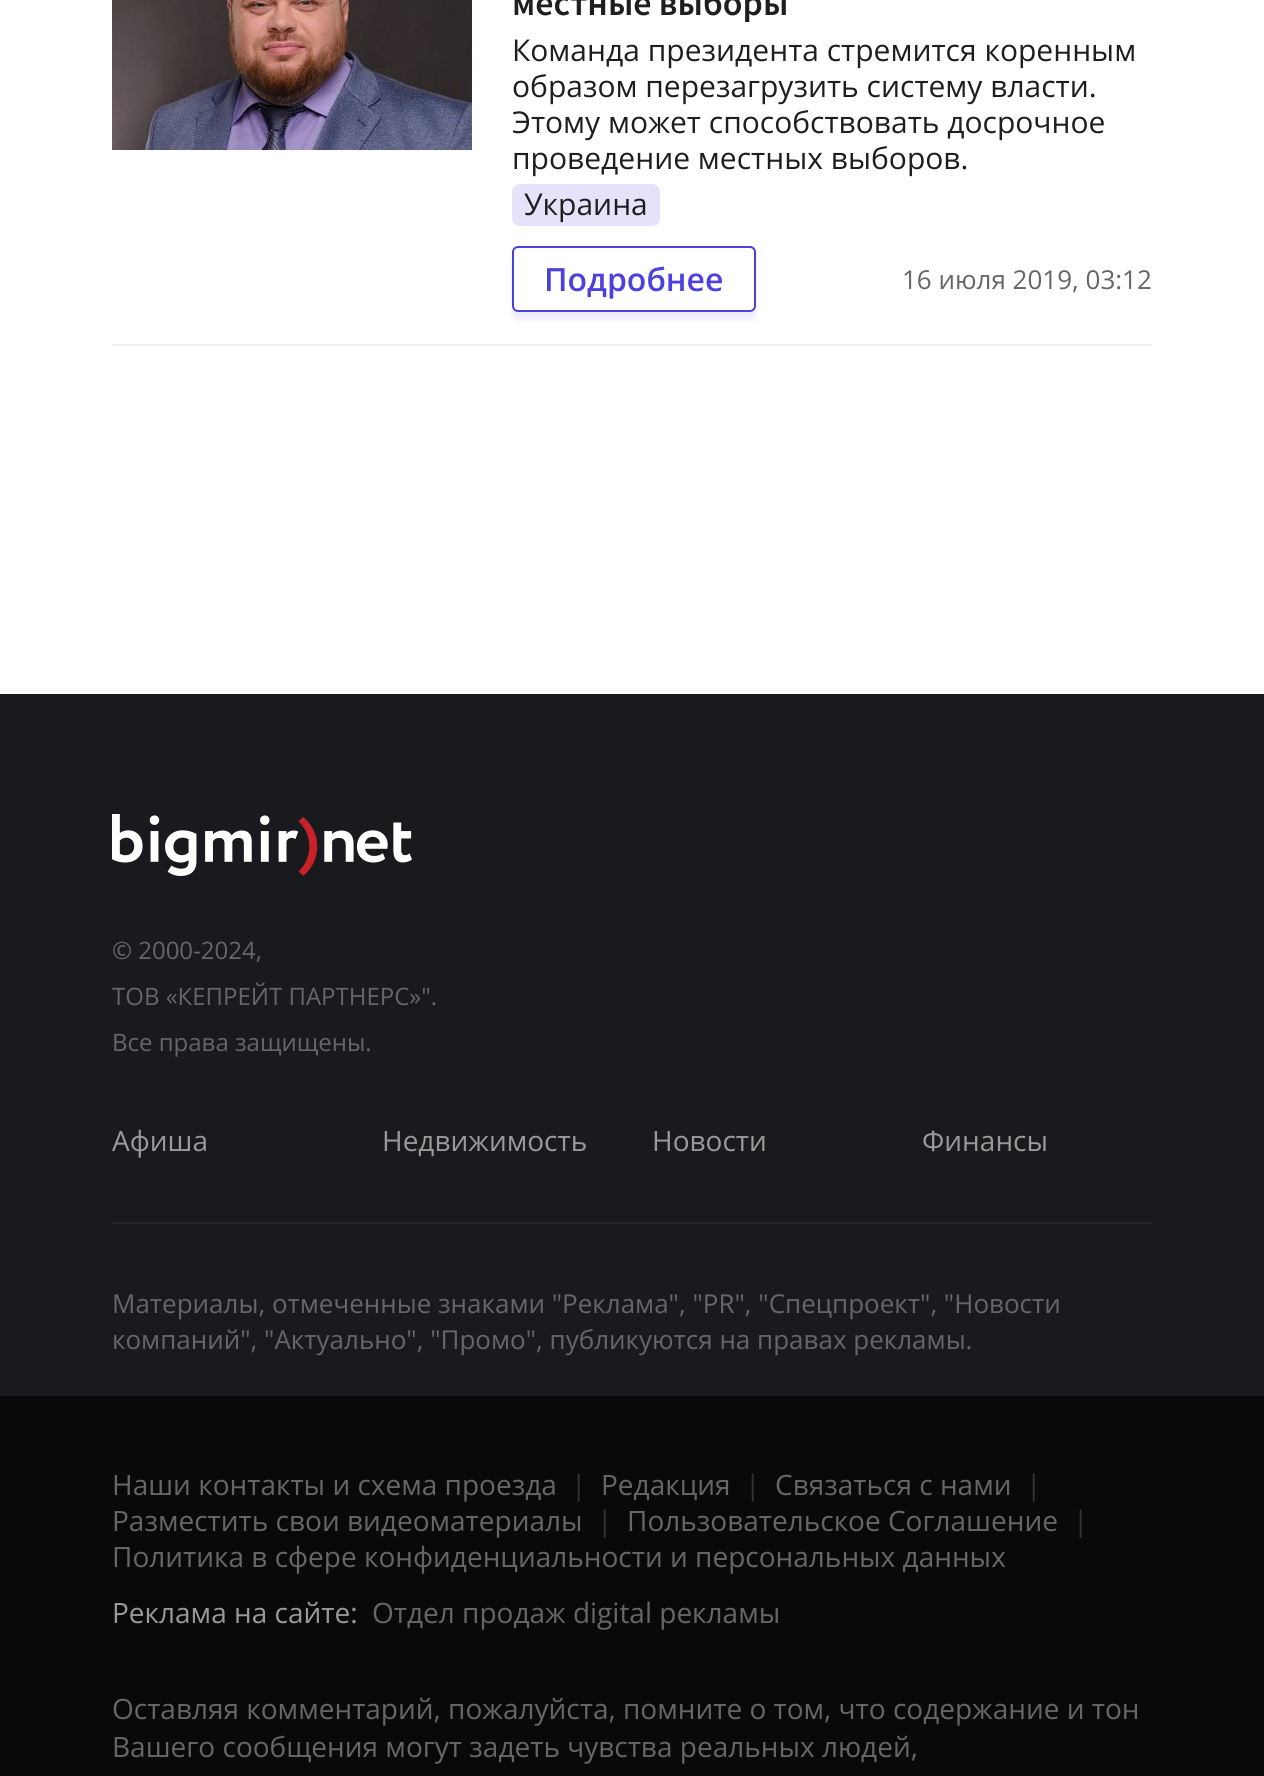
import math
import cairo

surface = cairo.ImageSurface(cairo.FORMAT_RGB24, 1264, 1776)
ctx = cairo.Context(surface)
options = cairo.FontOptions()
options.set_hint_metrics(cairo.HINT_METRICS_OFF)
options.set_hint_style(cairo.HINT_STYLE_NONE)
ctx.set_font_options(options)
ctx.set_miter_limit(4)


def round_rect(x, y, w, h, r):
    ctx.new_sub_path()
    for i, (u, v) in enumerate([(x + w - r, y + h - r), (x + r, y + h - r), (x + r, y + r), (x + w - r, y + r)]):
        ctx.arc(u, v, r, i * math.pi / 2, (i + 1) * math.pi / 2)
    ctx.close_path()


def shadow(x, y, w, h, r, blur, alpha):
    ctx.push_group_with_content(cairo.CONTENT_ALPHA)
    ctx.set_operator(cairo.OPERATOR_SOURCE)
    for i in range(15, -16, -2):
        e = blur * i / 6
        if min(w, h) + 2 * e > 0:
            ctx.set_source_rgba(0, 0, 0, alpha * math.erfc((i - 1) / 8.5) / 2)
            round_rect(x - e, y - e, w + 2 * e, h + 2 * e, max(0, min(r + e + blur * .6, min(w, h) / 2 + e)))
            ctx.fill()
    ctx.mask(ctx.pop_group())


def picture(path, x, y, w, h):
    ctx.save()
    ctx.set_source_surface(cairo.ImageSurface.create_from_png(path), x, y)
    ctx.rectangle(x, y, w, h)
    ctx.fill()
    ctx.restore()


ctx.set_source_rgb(1, 1, 1)
ctx.paint()
ctx.set_source_rgb(0.949, 0.949, 0.949)
ctx.rectangle(112, 344, 1040, 2)
ctx.fill()
picture("img1.png", 112, 0, 360, 150)
ctx.select_font_face("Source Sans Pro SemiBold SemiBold")
ctx.set_font_size(36)
ctx.set_source_rgb(0.118, 0.118, 0.118)
ctx.move_to(512, 15)
ctx.show_text("местные выборы")
ctx.select_font_face("Open Sans")
ctx.set_font_size(30)
ctx.move_to(512, 61)
ctx.show_text("Команда президента стремится коренным")
ctx.move_to(512, 97)
ctx.show_text("образом перезагрузить систему власти.")
ctx.move_to(512, 133)
ctx.show_text("Этому может способствовать досрочное")
ctx.move_to(512, 169)
ctx.show_text("проведение местных выборов.")
ctx.set_source_rgb(0.894, 0.89, 0.98)
round_rect(512, 184, 148, 42, 8)
ctx.fill()
ctx.set_source_rgb(0.118, 0.118, 0.118)
ctx.move_to(524, 215)
ctx.show_text("Украина")
ctx.save()
ctx.set_fill_rule(cairo.FILL_RULE_EVEN_ODD)
ctx.new_path()
ctx.move_to(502, 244)
ctx.line_to(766, 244)
ctx.line_to(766, 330)
ctx.line_to(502, 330)
ctx.close_path()
ctx.move_to(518, 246)
ctx.line_to(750, 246)
ctx.curve_to(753.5, 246, 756, 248.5, 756, 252)
ctx.line_to(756, 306)
ctx.curve_to(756, 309.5, 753.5, 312, 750, 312)
ctx.line_to(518, 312)
ctx.curve_to(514.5, 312, 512, 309.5, 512, 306)
ctx.line_to(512, 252)
ctx.curve_to(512, 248.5, 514.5, 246, 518, 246)
ctx.close_path()
ctx.clip()
ctx.set_source_rgb(0.302, 0.255, 0.871)
shadow(512, 254, 244, 66, 6, 3, 0.1)
ctx.restore()
round_rect(513, 247, 242, 64, 5)
ctx.set_source_rgb(0.302, 0.255, 0.871)
ctx.stroke()
ctx.select_font_face("Open Sans SemiBold")
ctx.set_font_size(32)
ctx.move_to(544, 291)
ctx.show_text("Подробнее")
ctx.select_font_face("Open Sans")
ctx.set_font_size(26)
ctx.set_source_rgb(0.4, 0.4, 0.4)
ctx.move_to(902, 289)
ctx.show_text("16 июля 2019, 03:12")
ctx.set_source_rgb(0.098, 0.102, 0.118)
ctx.rectangle(0, 694, 1264, 702)
ctx.fill()
picture("img2.png", 112, 814, 300, 62)
ctx.set_font_size(24)
ctx.set_source_rgb(0.4, 0.4, 0.4)
ctx.move_to(112, 959)
ctx.show_text("© 2000-2024,")
ctx.move_to(112, 1005)
ctx.show_text("ТОВ «КЕПРЕЙТ ПАРТНЕРС»\".")
ctx.move_to(112, 1051)
ctx.show_text("Все права защищены.")
ctx.set_font_size(28)
ctx.set_source_rgb(0.6, 0.6, 0.6)
ctx.move_to(112, 1151)
ctx.show_text("Афиша")
ctx.move_to(382, 1151)
ctx.show_text("Недвижимость")
ctx.move_to(652, 1151)
ctx.show_text("Новости")
ctx.move_to(922, 1151)
ctx.show_text("Финансы")
ctx.set_source_rgb(0.145, 0.145, 0.161)
ctx.rectangle(112, 1222, 1040, 2)
ctx.fill()
ctx.set_font_size(26)
ctx.set_source_rgb(0.4, 0.4, 0.4)
ctx.move_to(112, 1313)
ctx.show_text("Материалы, отмеченные знаками \"Реклама\", \"PR\", \"Спецпроект\", \"Новости")
ctx.move_to(112, 1349)
ctx.show_text("компаний\", \"Актуально\", \"Промо\", публикуются на правах рекламы.")
ctx.set_source_rgb(0.039, 0.039, 0.039)
ctx.rectangle(0, 1396, 1264, 380)
ctx.fill()
ctx.set_font_size(28)
ctx.set_source_rgb(0.4, 0.4, 0.4)
ctx.move_to(112, 1495)
ctx.show_text("Наши контакты и схема проезда")
ctx.set_source_rgb(0.2, 0.2, 0.2)
ctx.move_to(571, 1495)
ctx.show_text("|")
ctx.set_source_rgb(0.4, 0.4, 0.4)
ctx.move_to(601, 1495)
ctx.show_text("Редакция")
ctx.set_source_rgb(0.2, 0.2, 0.2)
ctx.move_to(745, 1495)
ctx.show_text("|")
ctx.set_source_rgb(0.4, 0.4, 0.4)
ctx.move_to(775, 1495)
ctx.show_text("Связаться с нами")
ctx.set_source_rgb(0.2, 0.2, 0.2)
ctx.move_to(1026, 1495)
ctx.show_text("|")
ctx.set_source_rgb(0.4, 0.4, 0.4)
ctx.move_to(112, 1531)
ctx.show_text("Разместить свои видеоматериалы")
ctx.set_source_rgb(0.2, 0.2, 0.2)
ctx.move_to(597, 1531)
ctx.show_text("|")
ctx.set_source_rgb(0.4, 0.4, 0.4)
ctx.move_to(627, 1531)
ctx.show_text("Пользовательское Соглашение")
ctx.set_source_rgb(0.2, 0.2, 0.2)
ctx.move_to(1073, 1531)
ctx.show_text("|")
ctx.set_source_rgb(0.4, 0.4, 0.4)
ctx.move_to(112, 1567)
ctx.show_text("Политика в сфере конфиденциальности и персональных данных")
ctx.set_source_rgb(0.6, 0.6, 0.6)
ctx.move_to(112, 1623)
ctx.show_text("Реклама на сайте:")
ctx.set_source_rgb(0.4, 0.4, 0.4)
ctx.move_to(372, 1623)
ctx.show_text("Отдел продаж digital рекламы")
ctx.move_to(112, 1719)
ctx.show_text("Оставляя комментарий, пожалуйста, помните о том, что содержание и тон")
ctx.move_to(112, 1757)
ctx.show_text("Вашего сообщения могут задеть чувства реальных людей,")
surface.write_to_png("page.png")
